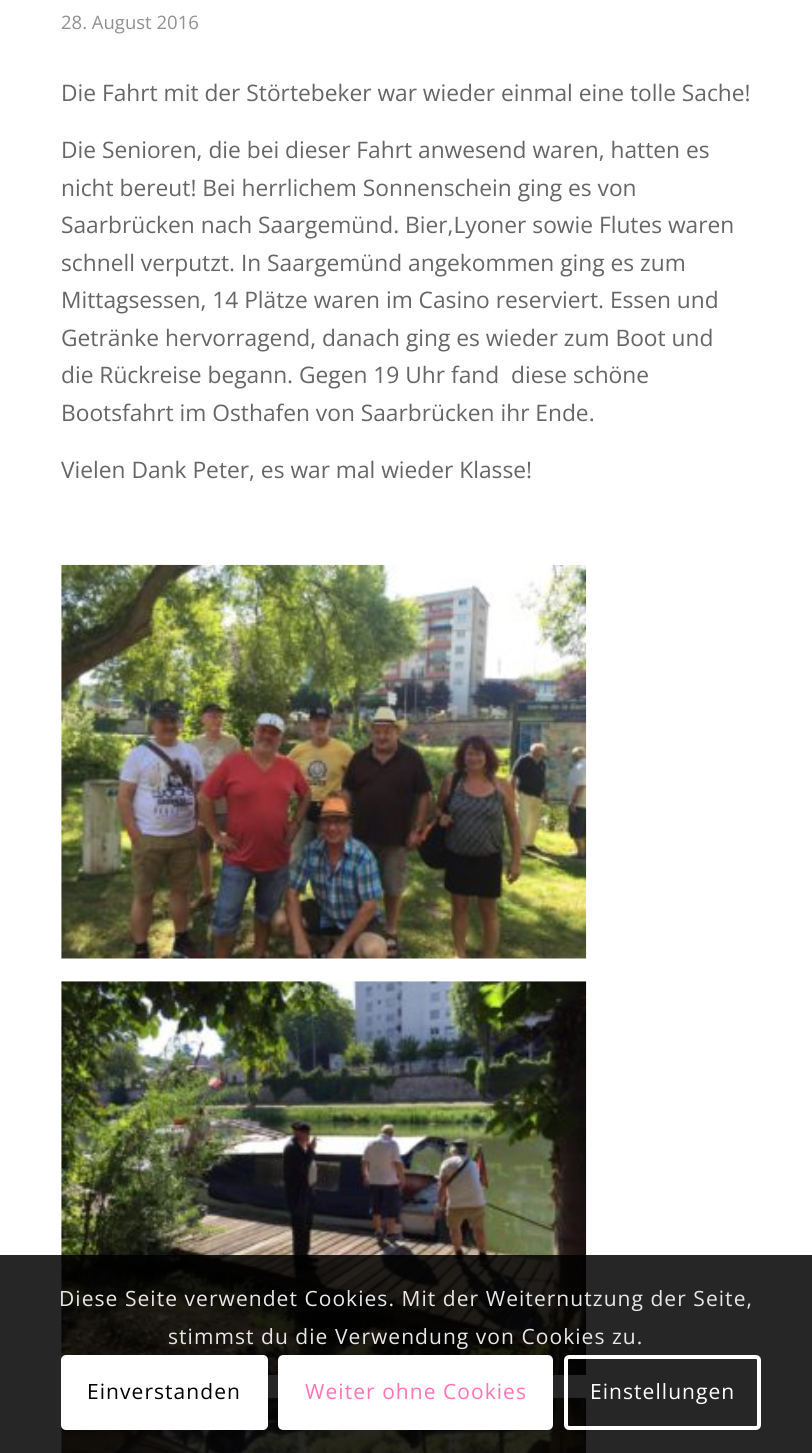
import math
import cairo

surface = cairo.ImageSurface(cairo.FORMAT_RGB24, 812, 1453)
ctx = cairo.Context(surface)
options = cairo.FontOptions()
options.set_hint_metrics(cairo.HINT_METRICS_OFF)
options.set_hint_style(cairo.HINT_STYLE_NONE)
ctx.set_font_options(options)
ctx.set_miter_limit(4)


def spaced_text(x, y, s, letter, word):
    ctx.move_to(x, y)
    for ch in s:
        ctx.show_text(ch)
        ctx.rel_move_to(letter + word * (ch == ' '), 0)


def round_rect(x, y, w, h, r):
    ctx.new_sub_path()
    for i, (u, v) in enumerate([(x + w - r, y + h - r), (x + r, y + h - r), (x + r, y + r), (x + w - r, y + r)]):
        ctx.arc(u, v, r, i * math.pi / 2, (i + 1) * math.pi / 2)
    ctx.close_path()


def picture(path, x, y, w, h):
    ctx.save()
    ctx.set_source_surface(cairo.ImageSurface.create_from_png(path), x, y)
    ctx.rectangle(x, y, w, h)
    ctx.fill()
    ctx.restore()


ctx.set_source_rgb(1, 1, 1)
ctx.paint()
ctx.select_font_face("Open Sans")
ctx.set_font_size(18.5)
ctx.set_source_rgb(0.569, 0.569, 0.569)
ctx.move_to(61, 29)
ctx.show_text("28. August 2016")
ctx.set_font_size(22.75)
ctx.set_source_rgb(0.4, 0.4, 0.4)
ctx.move_to(61, 101)
ctx.show_text("Die Fahrt mit der Störtebeker war wieder einmal eine tolle Sache!")
ctx.move_to(61, 158)
ctx.show_text("Die Senioren, die bei dieser Fahrt anwesend waren, hatten es")
ctx.move_to(61, 196)
ctx.show_text("nicht bereut! Bei herrlichem Sonnenschein ging es von")
ctx.move_to(61, 233)
ctx.show_text("Saarbrücken nach Saargemünd. Bier,Lyoner sowie Flutes waren")
ctx.move_to(61, 271)
ctx.show_text("schnell verputzt. In Saargemünd angekommen ging es zum")
ctx.move_to(61, 308)
ctx.show_text("Mittagsessen, 14 Plätze waren im Casino reserviert. Essen und")
ctx.move_to(61, 346)
ctx.show_text("Getränke hervorragend, danach ging es wieder zum Boot und")
ctx.move_to(61, 383)
ctx.show_text("die Rückreise begann. Gegen 19 Uhr fand  diese schöne")
ctx.move_to(61, 421)
ctx.show_text("Bootsfahrt im Osthafen von Saarbrücken ihr Ende.")
ctx.move_to(61, 478)
ctx.show_text("Vielen Dank Peter, es war mal wieder Klasse!")
picture("img1.png", 61, 564, 526, 395)
picture("img2.png", 61, 981, 526, 394)
picture("img3.png", 61, 1397, 526, 56)
ctx.set_source_rgba(0, 0, 0, 0.85)
ctx.rectangle(0, 1255, 812, 198)
ctx.fill()
ctx.set_font_size(21)
ctx.set_source_rgb(0.91, 0.906, 0.906)
spaced_text(59, 1306, "Diese Seite verwendet Cookies. Mit der Weiternutzung der Seite,", 1.05, 0)
spaced_text(168, 1344, "stimmst du die Verwendung von Cookies zu.", 1.05, 0)
ctx.set_source_rgb(1, 1, 1)
round_rect(61, 1355, 207, 75, 5)
ctx.fill()
ctx.set_source_rgb(0, 0, 0)
spaced_text(87, 1399, "Einverstanden", 1.05, 0)
ctx.set_source_rgb(1, 1, 1)
round_rect(280, 1357, 271, 71, 3)
ctx.fill_preserve()
ctx.set_line_width(4)
ctx.stroke()
ctx.set_source_rgb(1, 0.459, 0.71)
spaced_text(305, 1399, "Weiter ohne Cookies", 1.05, 0)
round_rect(566, 1357, 193, 71, 3)
ctx.set_source_rgb(1, 1, 1)
ctx.stroke()
spaced_text(590, 1399, "Einstellungen", 1.05, 0)
surface.write_to_png("page.png")
